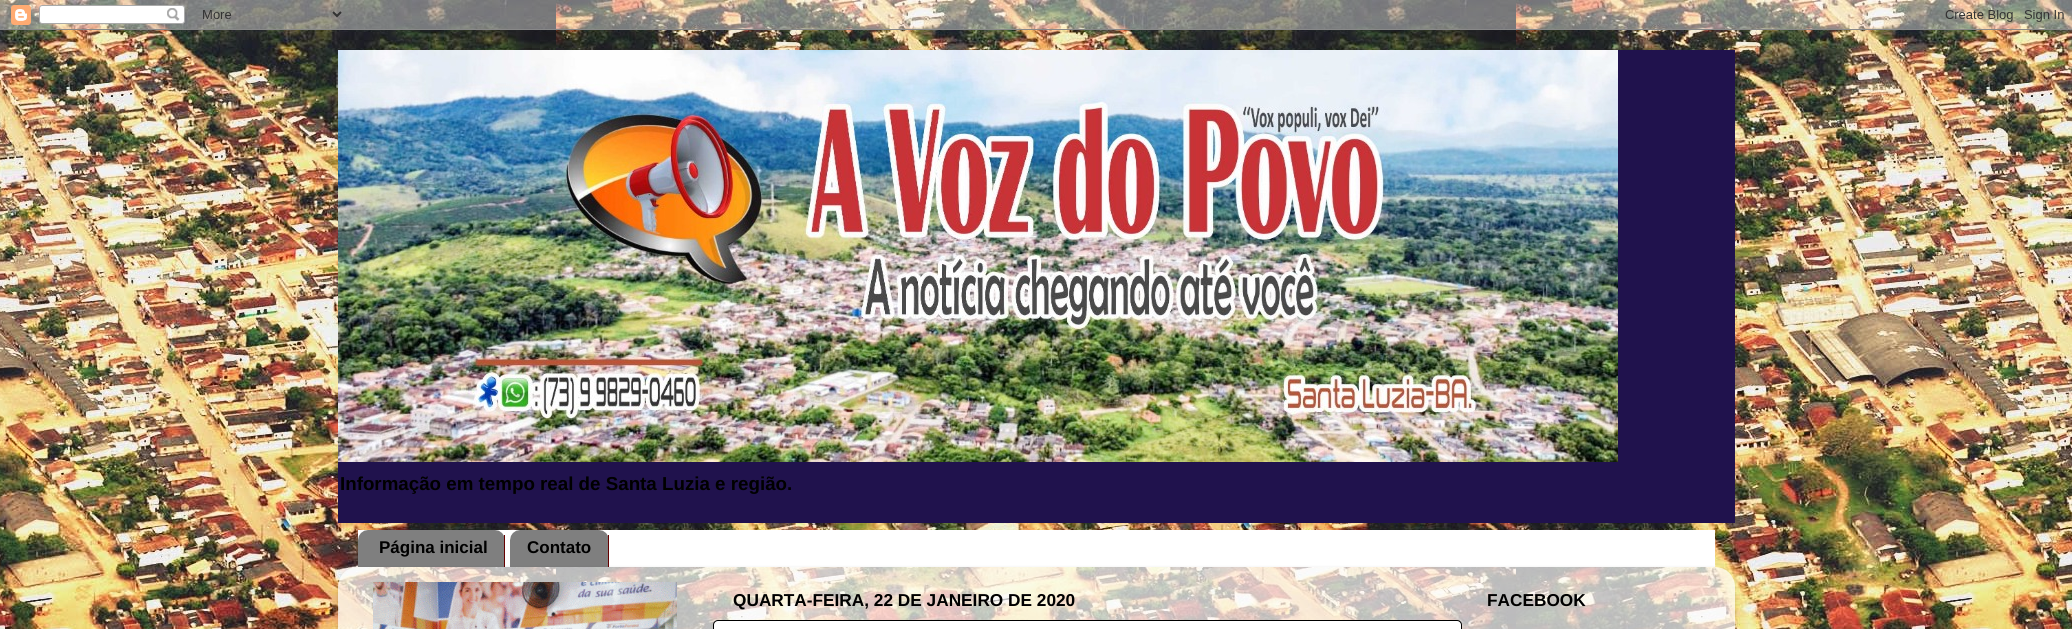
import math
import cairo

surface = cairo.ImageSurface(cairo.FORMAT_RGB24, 2072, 629)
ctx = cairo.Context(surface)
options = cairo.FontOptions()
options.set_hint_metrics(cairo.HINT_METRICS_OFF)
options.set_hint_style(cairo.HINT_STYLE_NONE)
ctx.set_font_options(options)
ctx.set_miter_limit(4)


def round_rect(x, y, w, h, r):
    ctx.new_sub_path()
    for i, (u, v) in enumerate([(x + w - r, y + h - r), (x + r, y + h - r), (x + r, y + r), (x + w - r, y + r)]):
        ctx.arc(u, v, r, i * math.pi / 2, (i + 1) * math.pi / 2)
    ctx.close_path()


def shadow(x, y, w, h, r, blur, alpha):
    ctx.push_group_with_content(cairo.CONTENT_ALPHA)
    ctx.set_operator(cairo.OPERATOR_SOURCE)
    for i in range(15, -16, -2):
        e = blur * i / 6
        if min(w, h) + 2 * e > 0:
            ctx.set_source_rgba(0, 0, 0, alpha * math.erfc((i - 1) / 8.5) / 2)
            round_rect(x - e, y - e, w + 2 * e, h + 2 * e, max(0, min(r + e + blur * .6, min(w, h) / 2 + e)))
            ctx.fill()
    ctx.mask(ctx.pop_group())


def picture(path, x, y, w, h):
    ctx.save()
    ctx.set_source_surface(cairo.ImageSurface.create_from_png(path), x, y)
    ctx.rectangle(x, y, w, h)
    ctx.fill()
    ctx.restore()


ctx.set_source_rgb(1, 1, 1)
ctx.paint()
picture("img1.png", 0, 0, 2072, 629)
picture("img2.png", 0, 0, 2072, 30)
ctx.set_source_rgb(0.125, 0.071, 0.302)
ctx.rectangle(338, 50, 1397, 473)
ctx.fill()
picture("img3.png", 338, 50, 1280, 412)
ctx.select_font_face("Liberation Sans", cairo.FONT_SLANT_NORMAL, cairo.FONT_WEIGHT_BOLD)
ctx.set_font_size(18.75)
ctx.set_source_rgb(0, 0, 0)
ctx.move_to(340, 490)
ctx.show_text("Informação em tempo real de Santa Luzia e região.")
ctx.set_source_rgb(1, 1, 1)
ctx.rectangle(358, 530, 1357, 37)
ctx.fill()
picture("img4.png", 358, 530, 146, 37)
ctx.set_source_rgb(0.4, 0, 0)
ctx.rectangle(504, 535, 1, 32)
ctx.fill()
ctx.set_font_size(17)
ctx.set_source_rgb(0, 0, 0)
ctx.move_to(379, 553)
ctx.show_text("Página inicial")
picture("img5.png", 510, 530, 98, 37)
ctx.set_source_rgb(0.4, 0, 0)
ctx.rectangle(608, 535, 1, 32)
ctx.fill()
ctx.set_source_rgb(0, 0, 0)
ctx.move_to(527, 553)
ctx.show_text("Contato")
ctx.save()
ctx.set_fill_rule(cairo.FILL_RULE_EVEN_ODD)
ctx.new_path()
ctx.move_to(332, 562)
ctx.line_to(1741, 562)
ctx.line_to(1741, 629)
ctx.line_to(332, 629)
ctx.close_path()
ctx.move_to(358, 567)
ctx.line_to(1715, 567)
ctx.curve_to(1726, 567, 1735, 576, 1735, 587)
ctx.line_to(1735, 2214)
ctx.line_to(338, 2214)
ctx.line_to(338, 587)
ctx.curve_to(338, 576, 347, 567, 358, 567)
ctx.close_path()
ctx.clip()
ctx.set_source_rgb(0, 0, 0)
shadow(338, 568, 1397, 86, 20, 1.5, 0.15)
ctx.restore()
picture("img6.png", 338, 567, 1397, 62)
picture("img7.png", 373, 582, 304, 47)
ctx.set_font_size(17.25)
ctx.move_to(733, 606)
ctx.show_text("QUARTA-FEIRA, 22 DE JANEIRO DE 2020")
ctx.set_source_rgb(1, 1, 1)
round_rect(713.5, 620.5, 748, 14, 4.5)
ctx.fill_preserve()
ctx.set_source_rgb(0, 0, 0)
ctx.set_line_width(1)
ctx.stroke()
ctx.move_to(1487, 606)
ctx.show_text("FACEBOOK")
surface.write_to_png("page.png")
